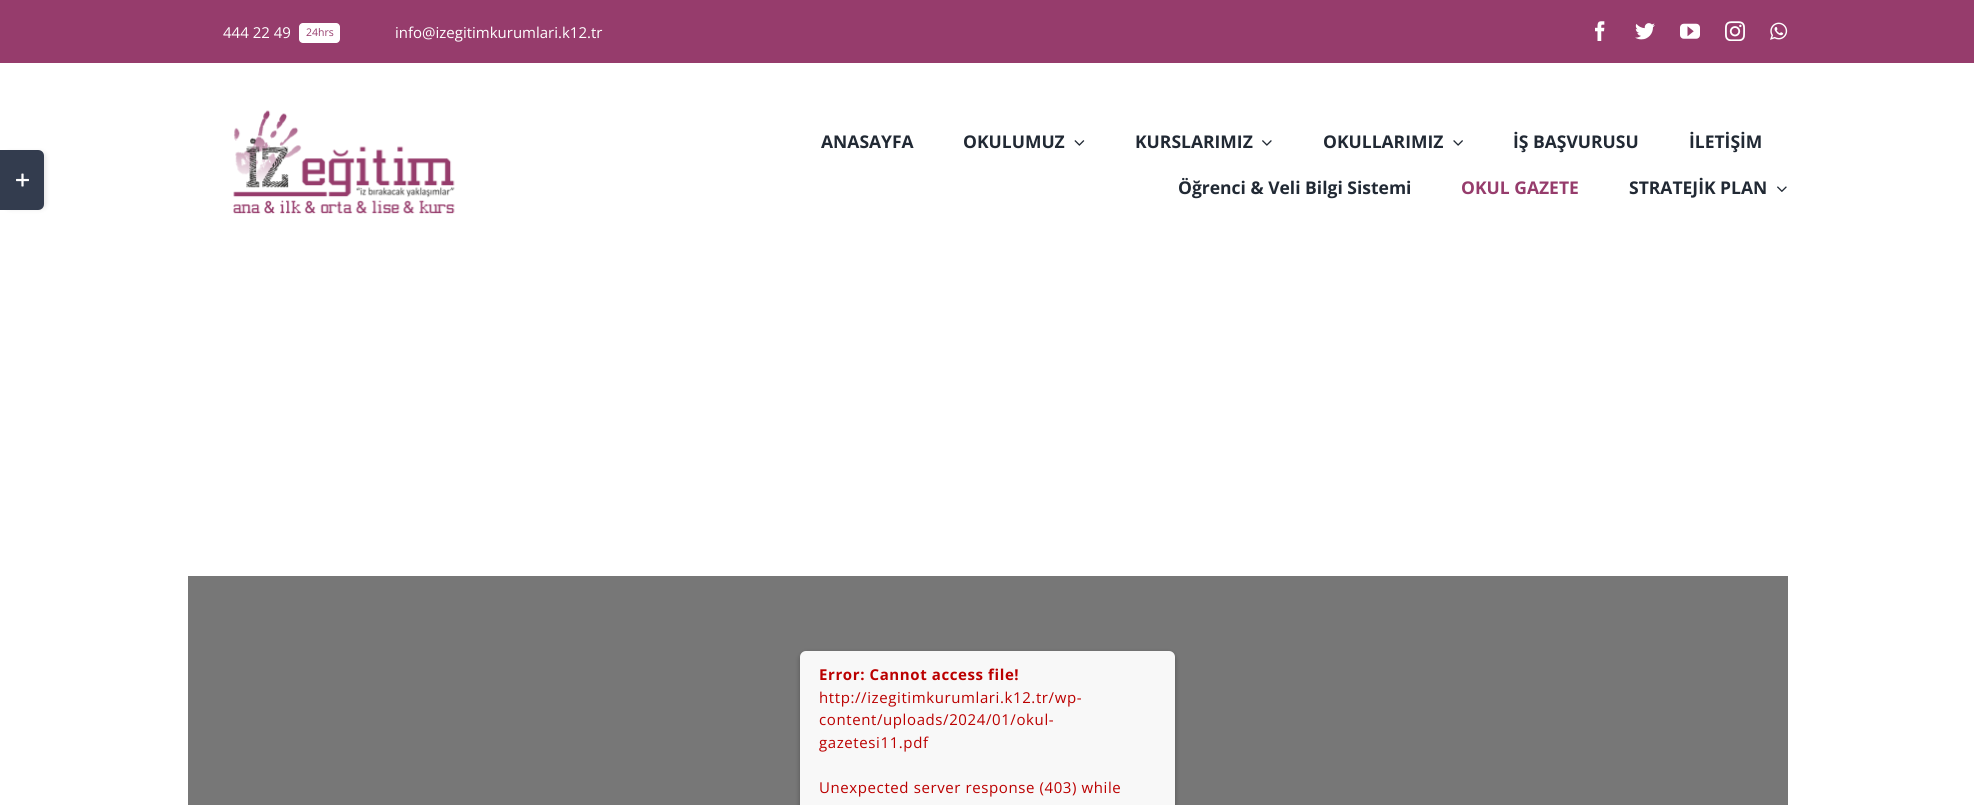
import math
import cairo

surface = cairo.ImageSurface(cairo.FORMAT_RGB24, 1974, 805)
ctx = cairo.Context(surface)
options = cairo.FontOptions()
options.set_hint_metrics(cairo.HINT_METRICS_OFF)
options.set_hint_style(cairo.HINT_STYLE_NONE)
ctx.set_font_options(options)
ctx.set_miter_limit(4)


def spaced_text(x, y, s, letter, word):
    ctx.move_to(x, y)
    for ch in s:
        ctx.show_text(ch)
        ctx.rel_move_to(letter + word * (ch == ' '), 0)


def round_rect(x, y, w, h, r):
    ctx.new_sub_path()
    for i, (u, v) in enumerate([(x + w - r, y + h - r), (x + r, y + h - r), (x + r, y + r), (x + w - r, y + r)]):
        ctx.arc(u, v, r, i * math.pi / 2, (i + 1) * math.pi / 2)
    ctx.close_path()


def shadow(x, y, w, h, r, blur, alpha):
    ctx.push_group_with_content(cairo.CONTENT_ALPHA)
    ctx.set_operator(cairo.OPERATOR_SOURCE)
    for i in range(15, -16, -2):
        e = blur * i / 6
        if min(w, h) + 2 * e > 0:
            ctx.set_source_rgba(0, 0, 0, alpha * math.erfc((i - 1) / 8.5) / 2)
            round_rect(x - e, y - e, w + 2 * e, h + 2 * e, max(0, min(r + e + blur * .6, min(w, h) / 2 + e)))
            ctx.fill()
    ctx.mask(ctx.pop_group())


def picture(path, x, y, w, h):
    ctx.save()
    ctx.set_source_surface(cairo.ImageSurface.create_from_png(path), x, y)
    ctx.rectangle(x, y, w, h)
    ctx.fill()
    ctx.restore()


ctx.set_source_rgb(1, 1, 1)
ctx.paint()
ctx.set_source_rgb(0, 0, 0)
shadow(6, 153, 39, 55, 4, 3, 0.14)
ctx.set_source_rgb(0.2, 0.235, 0.306)
ctx.new_path()
ctx.move_to(0, 150)
ctx.line_to(38, 150)
ctx.curve_to(41.5, 150, 44, 152.5, 44, 156)
ctx.line_to(44, 204)
ctx.curve_to(44, 207.5, 41.5, 210, 38, 210)
ctx.line_to(0, 210)
ctx.close_path()
ctx.fill()
picture("img1.png", 16, 173, 13, 14)
ctx.set_source_rgb(0.588, 0.235, 0.424)
ctx.rectangle(0, 0, 1974, 63)
ctx.fill()
ctx.select_font_face("Open Sans")
ctx.set_font_size(15)
ctx.set_source_rgb(1, 1, 1)
ctx.move_to(223, 38)
ctx.show_text("444 22 49")
round_rect(299, 23, 41, 20, 4)
ctx.fill()
ctx.set_font_size(10.5)
ctx.set_source_rgb(0.588, 0.235, 0.424)
ctx.move_to(306, 36)
ctx.show_text("24hrs")
ctx.set_font_size(15)
ctx.set_source_rgb(1, 1, 1)
ctx.move_to(395, 38)
ctx.show_text("info@izegitimkurumlari.k12.tr")
picture("img2.png", 1595, 21, 10, 20)
picture("img3.png", 1635, 23, 20, 17)
picture("img4.png", 1680, 23, 20, 16)
picture("img5.png", 1725, 21, 20, 20)
picture("img6.png", 1770, 22, 18, 18)
picture("img7.png", 233, 110, 222, 104)
ctx.select_font_face("Open Sans", cairo.FONT_SLANT_NORMAL, cairo.FONT_WEIGHT_BOLD)
ctx.set_font_size(17.5)
ctx.set_source_rgb(0.129, 0.161, 0.204)
ctx.move_to(821, 148)
ctx.show_text("ANASAYFA")
ctx.move_to(963, 148)
ctx.show_text("OKULUMUZ")
picture("img8.png", 1074, 140, 11, 6)
ctx.move_to(1135, 148)
ctx.show_text("KURSLARIMIZ")
picture("img9.png", 1262, 140, 10, 6)
ctx.move_to(1323, 148)
ctx.show_text("OKULLARIMIZ")
picture("img10.png", 1453, 140, 10, 6)
ctx.move_to(1513, 148)
ctx.show_text("İŞ BAŞVURUSU")
ctx.move_to(1689, 148)
ctx.show_text("İLETİŞİM")
ctx.move_to(1178, 194)
ctx.show_text("Öğrenci & Veli Bilgi Sistemi")
ctx.set_source_rgb(0.588, 0.235, 0.424)
ctx.move_to(1461, 194)
ctx.show_text("OKUL GAZETE")
ctx.set_source_rgb(0.129, 0.161, 0.204)
ctx.move_to(1629, 194)
ctx.show_text("STRATEJİK PLAN")
picture("img11.png", 1777, 186, 10, 6)
ctx.set_source_rgb(0.467, 0.467, 0.467)
ctx.rectangle(188, 576, 1600, 229)
ctx.fill()
ctx.set_source_rgb(0, 0, 0)
shadow(800, 653, 375, 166, 6, 2.5, 0.3)
ctx.set_source_rgb(0.969, 0.969, 0.969)
round_rect(800, 651, 375, 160, 6)
ctx.fill()
ctx.set_font_size(15)
ctx.set_source_rgb(0.733, 0, 0)
spaced_text(819, 680, "Error: Cannot access file!", 0.6, 0)
ctx.select_font_face("Open Sans")
spaced_text(819, 703, "http://izegitimkurumlari.k12.tr/wp-", 0.6, 0)
spaced_text(819, 725, "content/uploads/2024/01/okul-", 0.6, 0)
spaced_text(819, 748, "gazetesi11.pdf", 0.6, 0)
spaced_text(819, 793, "Unexpected server response (403) while", 0.6, 0)
surface.write_to_png("page.png")
